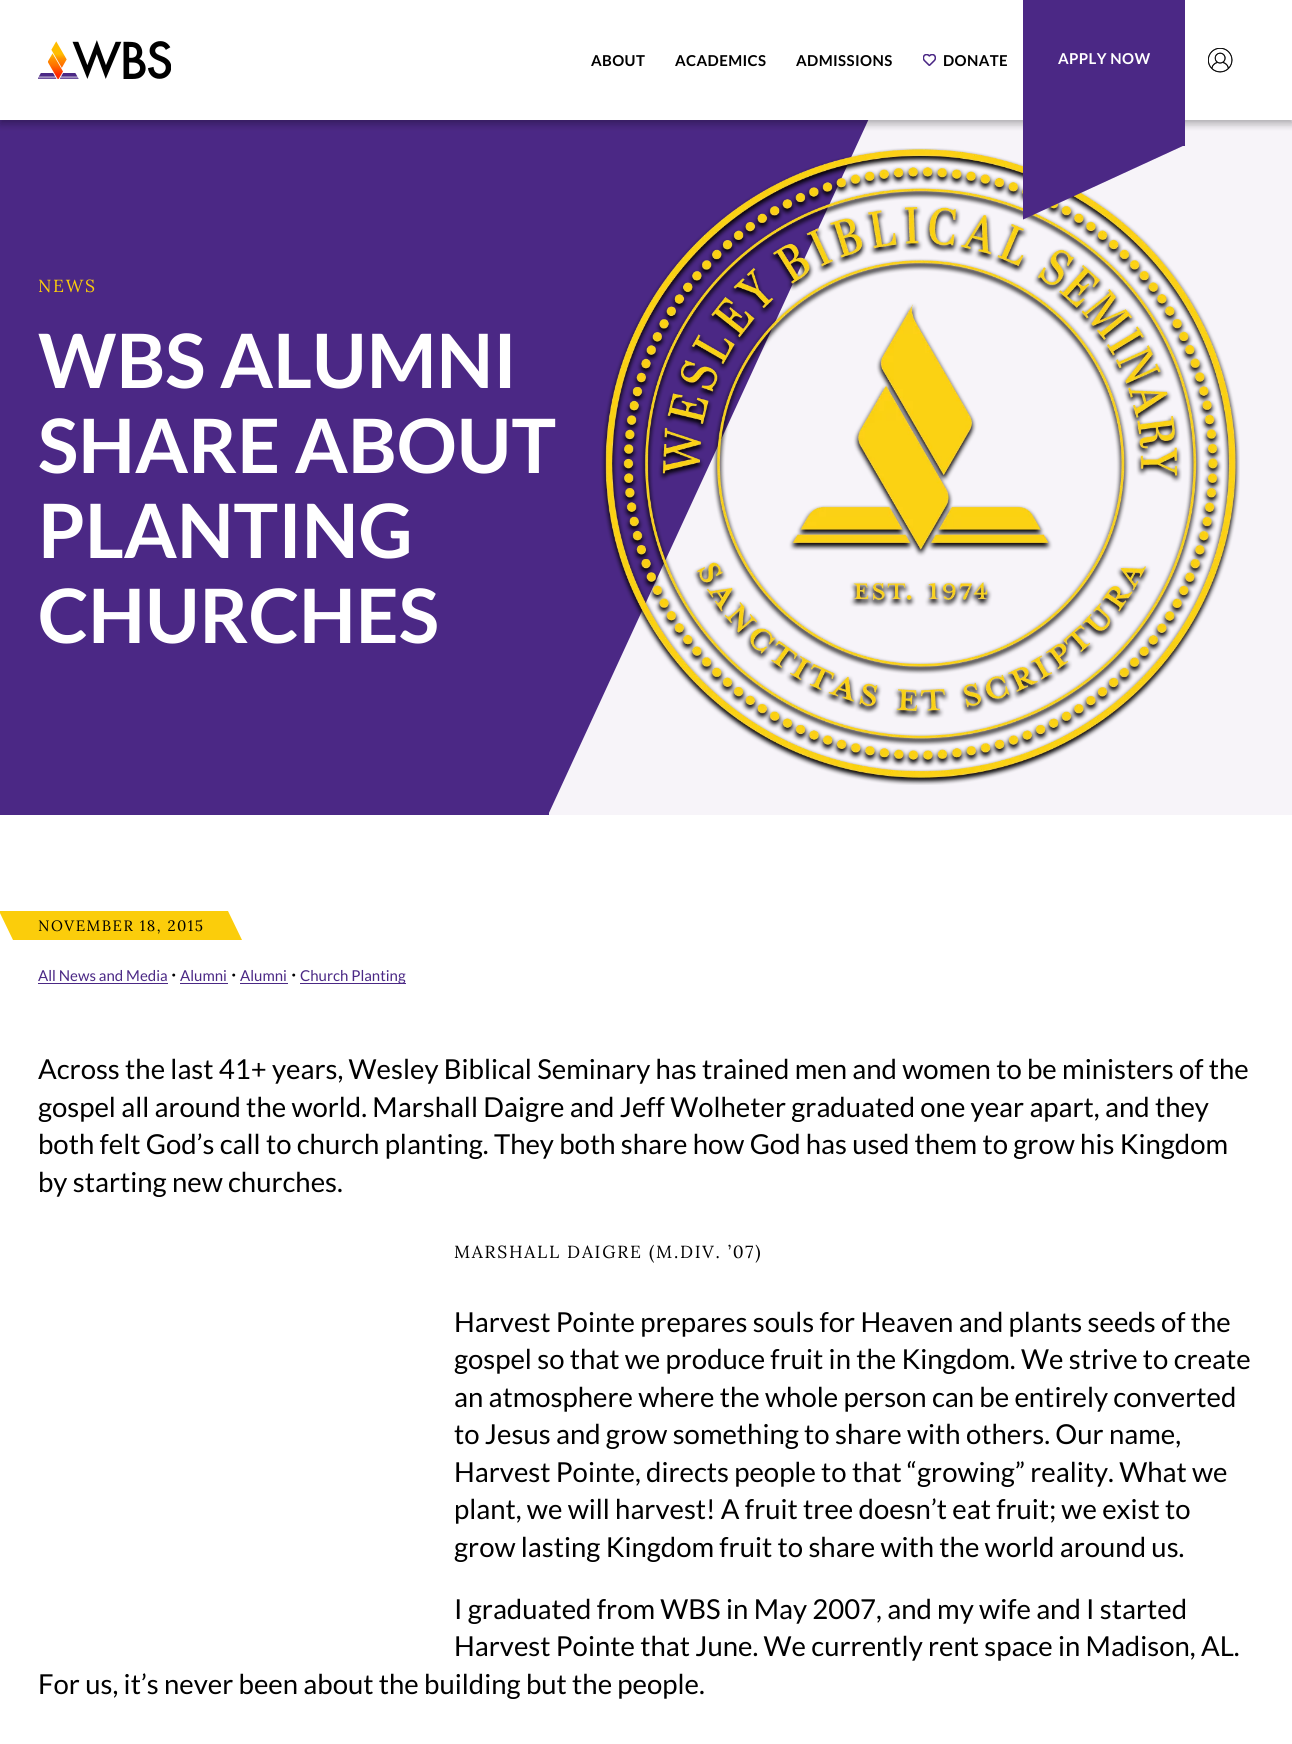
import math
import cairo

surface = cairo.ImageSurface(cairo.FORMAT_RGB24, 1292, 1744)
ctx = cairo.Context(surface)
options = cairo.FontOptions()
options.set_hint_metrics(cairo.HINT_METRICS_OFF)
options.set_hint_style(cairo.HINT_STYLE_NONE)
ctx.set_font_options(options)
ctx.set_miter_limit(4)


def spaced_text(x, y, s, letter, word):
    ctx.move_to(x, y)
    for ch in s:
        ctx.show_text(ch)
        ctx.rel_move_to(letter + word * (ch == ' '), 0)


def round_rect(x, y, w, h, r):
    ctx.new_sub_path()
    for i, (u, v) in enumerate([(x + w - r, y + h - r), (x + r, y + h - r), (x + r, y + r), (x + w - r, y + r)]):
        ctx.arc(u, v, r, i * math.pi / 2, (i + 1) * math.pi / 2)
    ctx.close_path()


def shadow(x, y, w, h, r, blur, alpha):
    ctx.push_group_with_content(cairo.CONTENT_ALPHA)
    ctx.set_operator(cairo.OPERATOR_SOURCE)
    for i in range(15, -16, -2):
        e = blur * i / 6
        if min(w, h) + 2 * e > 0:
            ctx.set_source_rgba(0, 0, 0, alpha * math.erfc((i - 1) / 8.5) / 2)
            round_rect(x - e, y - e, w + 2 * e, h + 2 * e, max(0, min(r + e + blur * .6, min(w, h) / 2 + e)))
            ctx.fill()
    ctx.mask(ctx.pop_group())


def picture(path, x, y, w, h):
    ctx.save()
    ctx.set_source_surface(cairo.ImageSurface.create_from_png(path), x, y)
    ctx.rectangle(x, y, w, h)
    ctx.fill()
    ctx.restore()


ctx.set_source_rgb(1, 1, 1)
ctx.paint()
ctx.set_source_rgb(0.965, 0.957, 0.976)
ctx.rectangle(549, 120, 743, 695)
ctx.fill()
ctx.set_source_rgb(0.294, 0.157, 0.522)
ctx.rectangle(0, 120, 549, 695)
ctx.fill()
ctx.new_path()
ctx.move_to(548, 815)
ctx.line_to(548, 112)
ctx.line_to(872, 112)
ctx.close_path()
ctx.fill()
ctx.set_source_rgb(0, 0, 0)
shadow(0, 4, 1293, 120, 0, 4, 0.16)
shadow(0, 4, 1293, 120, 0, 4, 0.16)
ctx.set_source_rgb(1, 1, 1)
ctx.rectangle(0, 0, 1292, 120)
ctx.fill()
picture("img1.png", 38, 40, 133, 39)
ctx.select_font_face("Lato", cairo.FONT_SLANT_NORMAL, cairo.FONT_WEIGHT_BOLD)
ctx.set_font_size(15)
ctx.set_source_rgb(0, 0, 0)
spaced_text(591, 66, "ABOUT", 0.4, 0)
spaced_text(675, 66, "ACADEMICS", 0.4, 0)
spaced_text(796, 66, "ADMISSIONS", 0.4, 0)
picture("img2.png", 923, 54, 13, 12)
spaced_text(943, 66, "DONATE", 0.4, 0)
picture("img4.png", 601, 148, 639, 637)
ctx.save()
ctx.rectangle(1023, 0, 162, 245)
ctx.clip()
ctx.set_source_rgb(0.294, 0.157, 0.522)
ctx.new_path()
ctx.move_to(1022, 220)
ctx.line_to(1022, 143)
ctx.line_to(1185, 143)
ctx.line_to(1185, 145)
ctx.close_path()
ctx.fill()
ctx.restore()
ctx.set_source_rgb(0.294, 0.157, 0.522)
ctx.rectangle(1023, 0, 162, 146)
ctx.fill()
ctx.set_source_rgb(1, 1, 1)
spaced_text(1058, 64, "APPLY NOW", 0.4, 0)
picture("img3.png", 1208, 48, 25, 25)
ctx.select_font_face("Lora")
ctx.set_font_size(17.5)
ctx.set_source_rgb(0.984, 0.804, 0.043)
spaced_text(38, 292, "NEWS", 1.75, 0)
ctx.select_font_face("Lato", cairo.FONT_SLANT_NORMAL, cairo.FONT_WEIGHT_BOLD)
ctx.set_font_size(75)
ctx.set_source_rgb(1, 1, 1)
ctx.move_to(38, 388)
ctx.show_text("WBS ALUMNI")
ctx.move_to(38, 473)
ctx.show_text("SHARE ABOUT")
ctx.move_to(38, 558)
ctx.show_text("PLANTING")
ctx.move_to(38, 643)
ctx.show_text("CHURCHES")
ctx.set_source_rgb(0.984, 0.804, 0.043)
ctx.new_path()
ctx.move_to(-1, 911)
ctx.line_to(228, 911)
ctx.line_to(242, 940)
ctx.line_to(13, 940)
ctx.close_path()
ctx.fill()
ctx.select_font_face("Lora")
ctx.set_font_size(15)
ctx.set_source_rgb(0, 0, 0)
spaced_text(38, 931, "NOVEMBER 18, 2015", 1.5, 0)
ctx.select_font_face("Lato")
ctx.set_source_rgb(0.294, 0.157, 0.522)
ctx.move_to(38, 981)
ctx.show_text("All News and Media")
ctx.rectangle(38, 983, 130, 1)
ctx.fill()
ctx.set_font_size(20)
ctx.set_source_rgb(0, 0, 0)
ctx.move_to(171, 981)
ctx.show_text("·")
ctx.set_font_size(15)
ctx.set_source_rgb(0.294, 0.157, 0.522)
ctx.move_to(180, 981)
ctx.show_text("Alumni")
ctx.rectangle(180, 983, 48, 1)
ctx.fill()
ctx.set_font_size(20)
ctx.set_source_rgb(0, 0, 0)
ctx.move_to(231, 981)
ctx.show_text("·")
ctx.set_font_size(15)
ctx.set_source_rgb(0.294, 0.157, 0.522)
ctx.move_to(240, 981)
ctx.show_text("Alumni")
ctx.rectangle(240, 983, 48, 1)
ctx.fill()
ctx.set_font_size(20)
ctx.set_source_rgb(0, 0, 0)
ctx.move_to(291, 981)
ctx.show_text("·")
ctx.set_source_rgb(0.294, 0.157, 0.522)
ctx.rectangle(300, 983, 106, 1)
ctx.fill()
ctx.set_font_size(15)
ctx.move_to(300, 981)
ctx.show_text("Church Planting")
ctx.set_font_size(27.5)
ctx.set_source_rgb(0, 0, 0)
ctx.move_to(38, 1079)
ctx.show_text("Across the last 41+ years, Wesley Biblical Seminary has trained men and women to be ministers of the")
ctx.move_to(38, 1117)
ctx.show_text("gospel all around the world. Marshall Daigre and Jeff Wolheter graduated one year apart, and they")
ctx.move_to(38, 1154)
ctx.show_text("both felt God’s call to church planting. They both share how God has used them to grow his Kingdom")
ctx.move_to(38, 1192)
ctx.show_text("by starting new churches.")
ctx.select_font_face("Lora")
ctx.set_font_size(17.5)
spaced_text(454, 1258, "MARSHALL DAIGRE (M.DIV. ’07)", 1.75, 0)
ctx.select_font_face("Lato")
ctx.set_font_size(27.5)
ctx.move_to(454, 1332)
ctx.show_text("Harvest Pointe prepares souls for Heaven and plants seeds of the")
ctx.move_to(454, 1369)
ctx.show_text("gospel so that we produce fruit in the Kingdom. We strive to create")
ctx.move_to(454, 1407)
ctx.show_text("an atmosphere where the whole person can be entirely converted")
ctx.move_to(454, 1444)
ctx.show_text("to Jesus and grow something to share with others. Our name,")
ctx.move_to(454, 1482)
ctx.show_text("Harvest Pointe, directs people to that “growing” reality. What we")
ctx.move_to(454, 1519)
ctx.show_text("plant, we will harvest! A fruit tree doesn’t eat fruit; we exist to")
ctx.move_to(454, 1557)
ctx.show_text("grow lasting Kingdom fruit to share with the world around us.")
ctx.move_to(454, 1619)
ctx.show_text("I graduated from WBS in May 2007, and my wife and I started")
ctx.move_to(454, 1656)
ctx.show_text("Harvest Pointe that June. We currently rent space in Madison, AL.")
ctx.move_to(38, 1694)
ctx.show_text("For us, it’s never been about the building but the people.")
surface.write_to_png("page.png")
